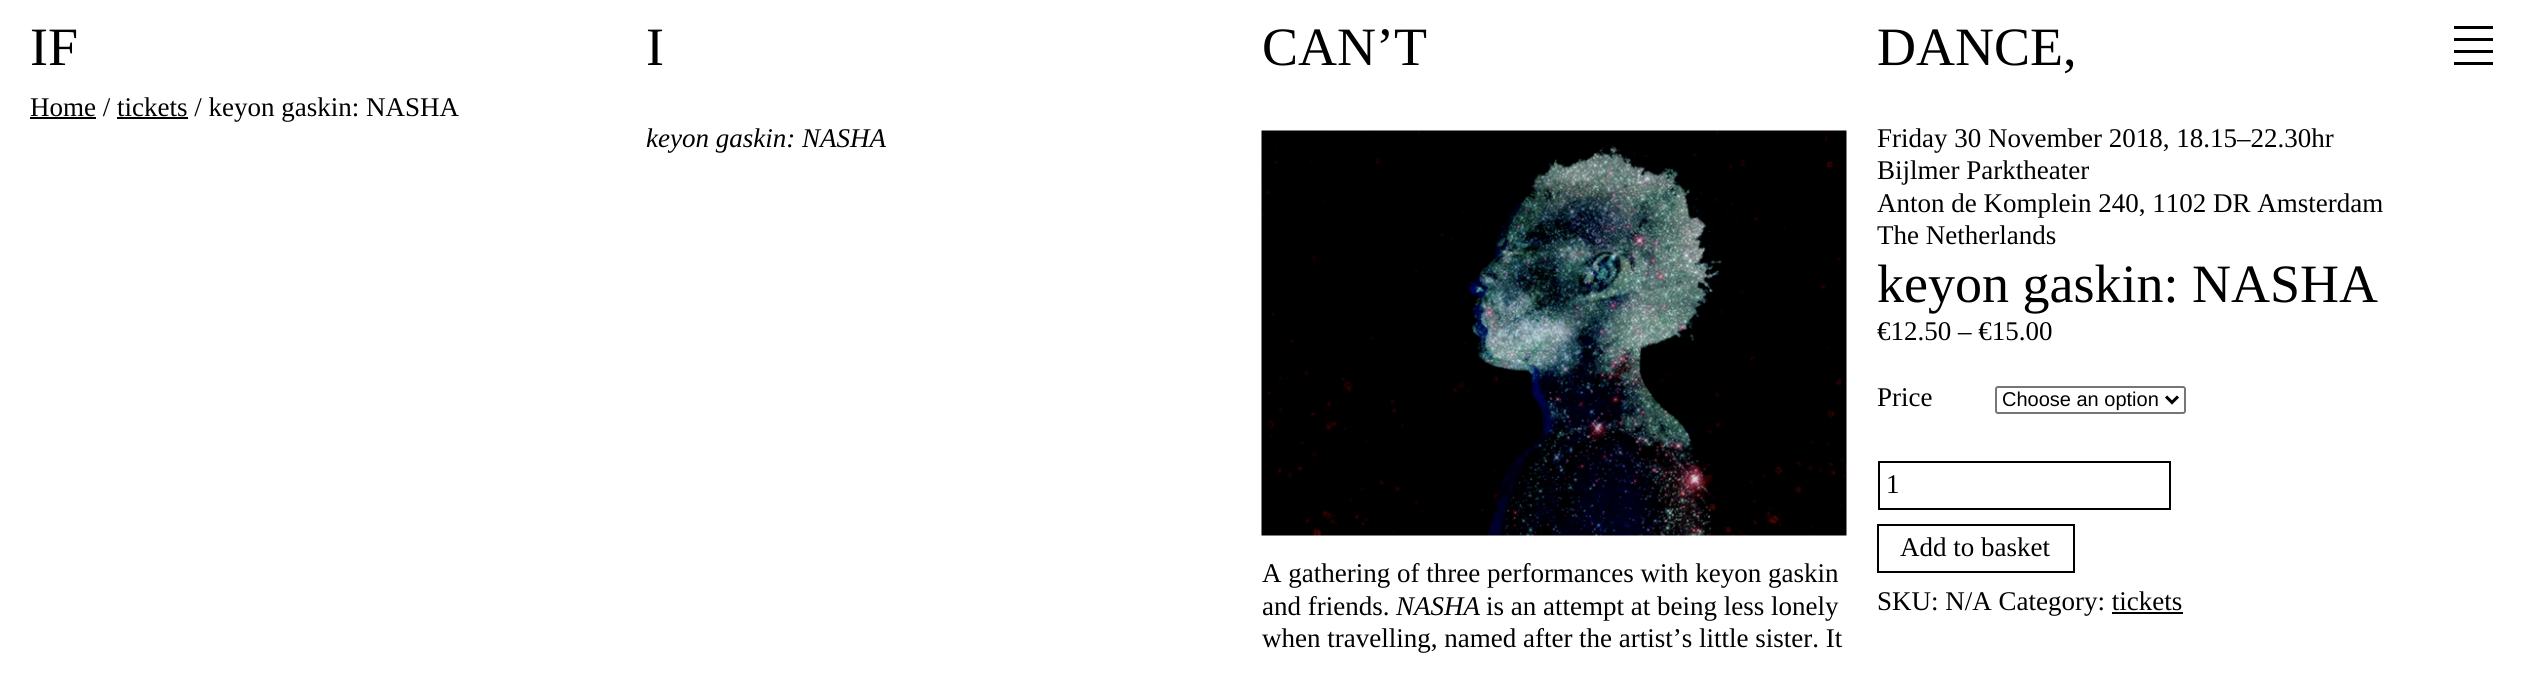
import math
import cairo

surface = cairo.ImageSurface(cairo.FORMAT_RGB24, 2522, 673)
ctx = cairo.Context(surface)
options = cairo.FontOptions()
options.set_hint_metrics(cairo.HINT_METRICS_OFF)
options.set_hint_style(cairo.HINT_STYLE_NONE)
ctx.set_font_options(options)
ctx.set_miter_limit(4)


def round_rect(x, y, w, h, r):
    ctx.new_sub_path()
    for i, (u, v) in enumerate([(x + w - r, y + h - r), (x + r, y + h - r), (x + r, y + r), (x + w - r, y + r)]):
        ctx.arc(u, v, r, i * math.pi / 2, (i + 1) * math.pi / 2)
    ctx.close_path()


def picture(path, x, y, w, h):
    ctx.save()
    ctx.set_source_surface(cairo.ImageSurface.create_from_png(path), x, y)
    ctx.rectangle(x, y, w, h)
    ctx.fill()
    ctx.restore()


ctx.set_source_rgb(1, 1, 1)
ctx.paint()
ctx.select_font_face("Liberation Serif")
ctx.set_font_size(54)
ctx.set_source_rgb(0, 0, 0)
ctx.move_to(30, 65)
ctx.show_text("IF")
ctx.move_to(646, 65)
ctx.show_text("I")
ctx.move_to(1262, 65)
ctx.show_text("CAN’T")
ctx.move_to(1877, 65)
ctx.show_text("DANCE,")
ctx.rectangle(2454, 26, 39, 3)
ctx.fill()
ctx.rectangle(2454, 38, 39, 3)
ctx.fill()
ctx.rectangle(2454, 50, 39, 3)
ctx.fill()
ctx.rectangle(2454, 62, 39, 3)
ctx.fill()
ctx.rectangle(30, 117, 66, 2)
ctx.fill()
ctx.set_font_size(27)
ctx.move_to(30, 116)
ctx.show_text("Home / tickets / keyon gaskin: NASHA")
ctx.rectangle(117, 117, 71, 2)
ctx.fill()
ctx.select_font_face("Liberation Serif", cairo.FONT_SLANT_ITALIC)
ctx.move_to(646, 147)
ctx.show_text("keyon gaskin: NASHA")
picture("img1.png", 1261, 130, 586, 406)
ctx.select_font_face("Liberation Serif")
ctx.move_to(1262, 582)
ctx.show_text("A gathering of three performances with keyon gaskin")
ctx.move_to(1262, 615)
ctx.show_text("and friends.")
ctx.select_font_face("Liberation Serif", cairo.FONT_SLANT_ITALIC)
ctx.move_to(1396, 615)
ctx.show_text("NASHA")
ctx.select_font_face("Liberation Serif")
ctx.move_to(1486, 615)
ctx.show_text("is an attempt at being less lonely")
ctx.move_to(1262, 647)
ctx.show_text("when travelling, named after the artist’s little sister. It")
ctx.move_to(1877, 147)
ctx.show_text("Friday 30 November 2018, 18.15–22.30hr")
ctx.move_to(1877, 179)
ctx.show_text("Bijlmer Parktheater")
ctx.move_to(1877, 212)
ctx.show_text("Anton de Komplein 240, 1102 DR Amsterdam")
ctx.move_to(1877, 244)
ctx.show_text("The Netherlands")
ctx.set_font_size(54)
ctx.move_to(1877, 302)
ctx.show_text("keyon gaskin: NASHA")
ctx.set_font_size(27)
ctx.move_to(1877, 340)
ctx.show_text("€12.50 – €15.00")
ctx.move_to(1877, 406)
ctx.show_text("Price")
round_rect(1996, 387, 189, 26, 2)
ctx.set_source_rgb(0.463, 0.463, 0.463)
ctx.stroke()
ctx.new_path()
ctx.move_to(2166, 396.5)
ctx.line_to(2172, 402.5)
ctx.line_to(2178, 396.5)
ctx.set_source_rgb(0, 0, 0)
ctx.set_line_width(3)
ctx.stroke()
ctx.select_font_face("Liberation Sans")
ctx.set_font_size(20)
ctx.move_to(2002, 406)
ctx.show_text("Choose an option")
ctx.rectangle(1879, 462, 291, 47)
ctx.set_line_width(2)
ctx.stroke()
ctx.select_font_face("Liberation Serif")
ctx.set_font_size(27)
ctx.move_to(1886, 493)
ctx.show_text("1")
ctx.rectangle(1878, 525, 196, 47)
ctx.stroke()
ctx.move_to(1900, 556)
ctx.show_text("Add to basket")
ctx.move_to(1877, 610)
ctx.show_text("SKU: N/A Category: tickets")
ctx.rectangle(2112, 612, 71, 2)
ctx.fill()
surface.write_to_png("page.png")
